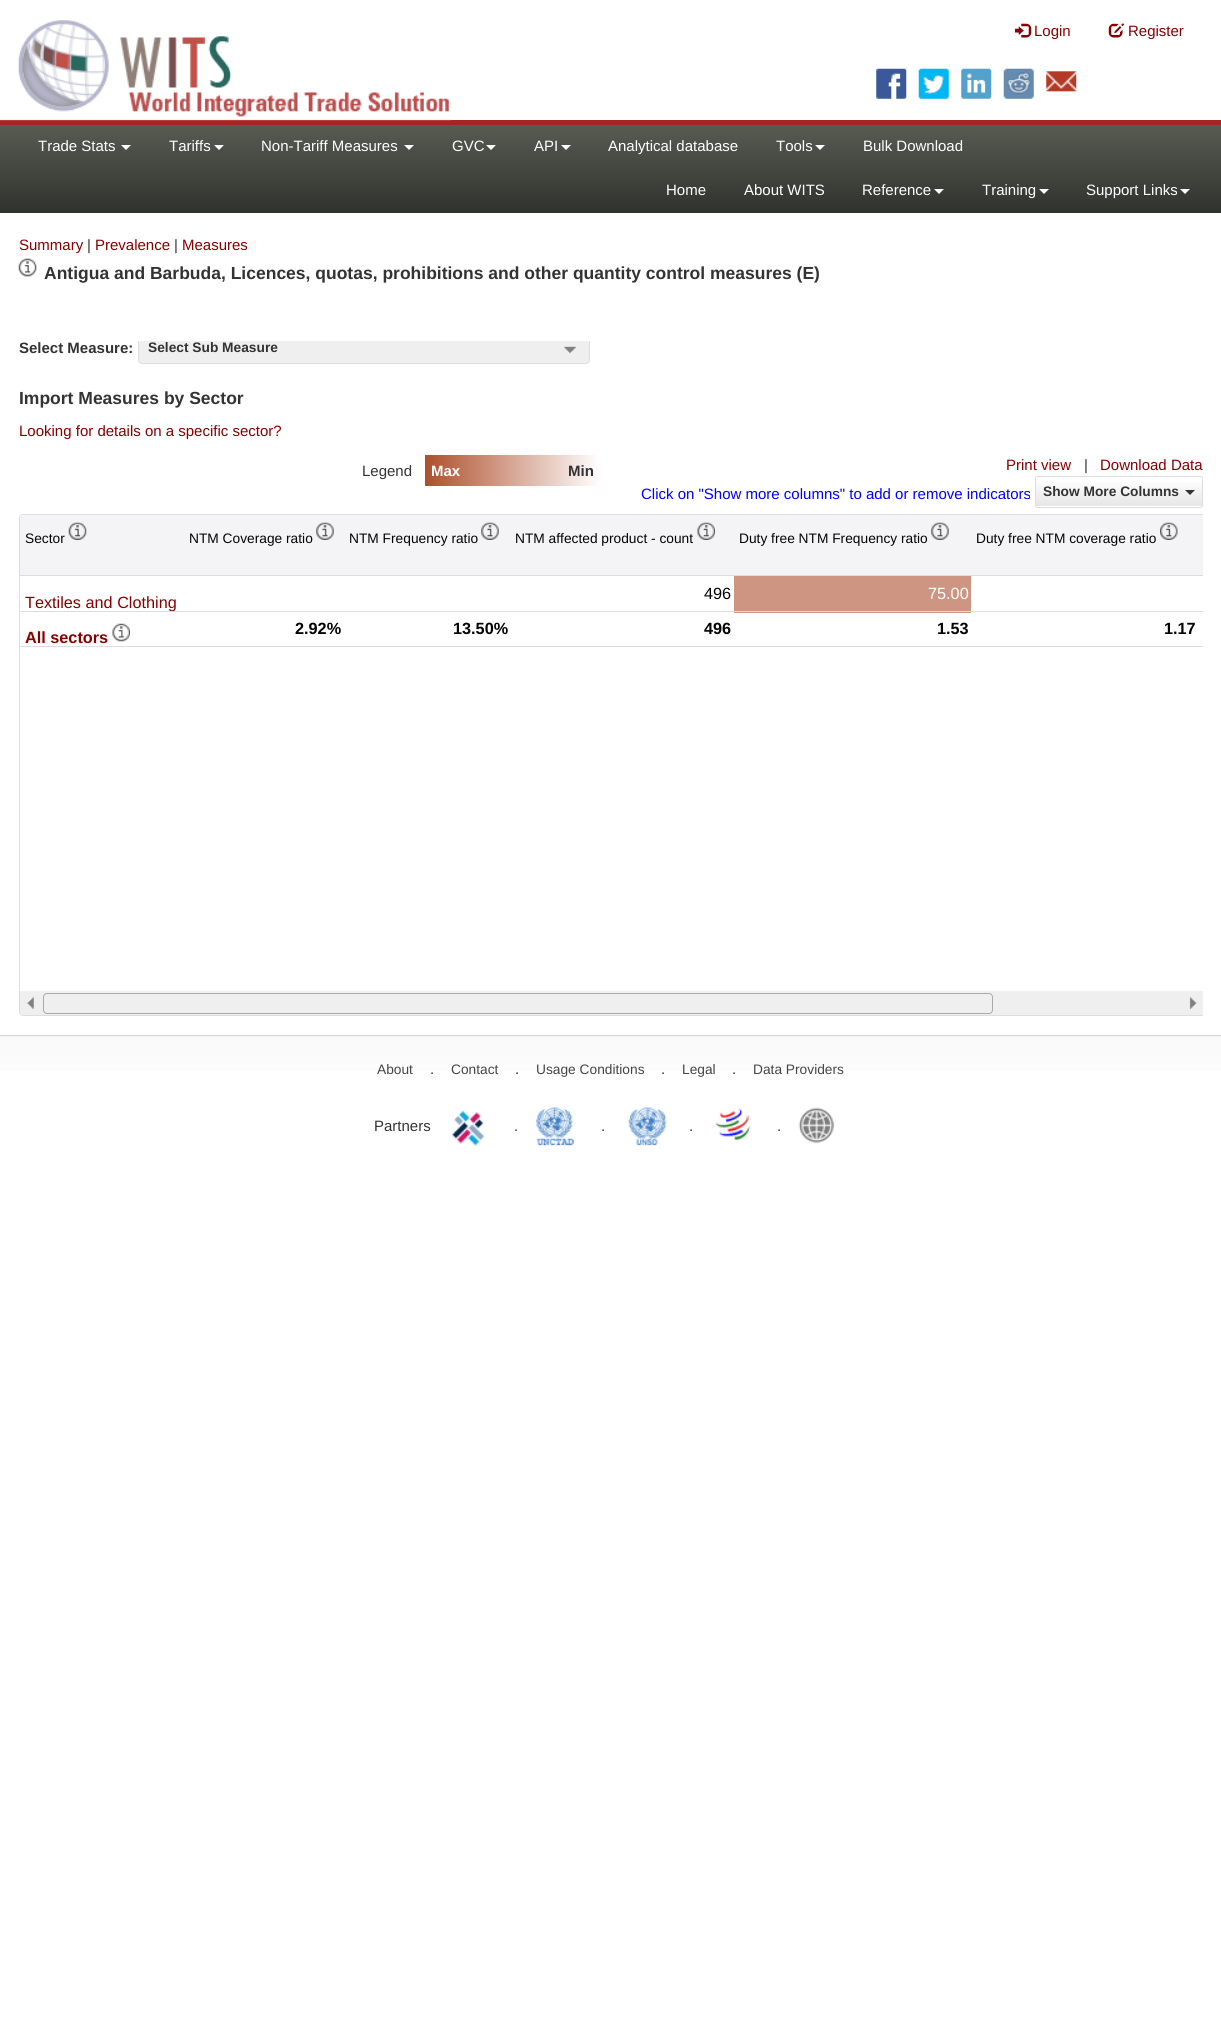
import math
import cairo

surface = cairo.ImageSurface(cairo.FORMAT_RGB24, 1221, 2035)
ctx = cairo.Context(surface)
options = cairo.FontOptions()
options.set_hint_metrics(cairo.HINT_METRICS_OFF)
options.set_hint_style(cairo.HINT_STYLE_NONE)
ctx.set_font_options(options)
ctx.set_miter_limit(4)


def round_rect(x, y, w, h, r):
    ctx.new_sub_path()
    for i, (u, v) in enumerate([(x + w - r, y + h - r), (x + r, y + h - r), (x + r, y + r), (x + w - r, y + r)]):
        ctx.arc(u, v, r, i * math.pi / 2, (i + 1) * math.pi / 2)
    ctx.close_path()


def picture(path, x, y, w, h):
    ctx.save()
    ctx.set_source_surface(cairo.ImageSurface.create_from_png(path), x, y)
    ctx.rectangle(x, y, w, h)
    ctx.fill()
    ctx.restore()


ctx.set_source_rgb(1, 1, 1)
ctx.paint()
ctx.set_source_rgb(0.667, 0.133, 0.133)
ctx.rectangle(0, 120, 1221, 5)
ctx.fill()
picture("img1.png", 0, 20, 452, 101)
picture("img2.png", 1015, 23, 17, 15)
ctx.select_font_face("Liberation Sans")
ctx.set_font_size(15)
ctx.set_source_rgb(0.522, 0, 0)
ctx.move_to(1034, 36)
ctx.show_text("Login")
picture("img3.png", 1108, 23, 16, 15)
ctx.move_to(1128, 36)
ctx.show_text("Register")
picture("img4.png", 876, 68, 31, 31)
picture("img5.png", 918, 68, 31, 31)
picture("img6.png", 961, 68, 31, 31)
picture("img7.png", 1003, 68, 31, 31)
picture("img8.png", 1046, 71, 31, 21)
gradient = cairo.LinearGradient(611, 125, 611, 213)
gradient.add_color_stop_rgba(0, 0.345, 0.357, 0.322, 1)
gradient.add_color_stop_rgba(1, 0.188, 0.196, 0.176, 1)
ctx.set_source(gradient)
ctx.rectangle(0, 125, 1221, 88)
ctx.fill()
ctx.set_source_rgb(1, 1, 1)
ctx.move_to(38, 151)
ctx.show_text("Trade Stats")
ctx.new_path()
ctx.move_to(121, 145)
ctx.line_to(131, 145)
ctx.line_to(126, 150)
ctx.close_path()
ctx.fill()
ctx.move_to(169, 151)
ctx.show_text("Tariffs")
ctx.new_path()
ctx.move_to(214, 145)
ctx.line_to(224, 145)
ctx.line_to(219, 150)
ctx.close_path()
ctx.fill()
ctx.move_to(261, 151)
ctx.show_text("Non-Tariff Measures")
ctx.new_path()
ctx.move_to(404, 145)
ctx.line_to(414, 145)
ctx.line_to(409, 150)
ctx.close_path()
ctx.fill()
ctx.move_to(452, 151)
ctx.show_text("GVC")
ctx.new_path()
ctx.move_to(486, 145)
ctx.line_to(496, 145)
ctx.line_to(491, 150)
ctx.close_path()
ctx.fill()
ctx.move_to(534, 151)
ctx.show_text("API")
ctx.new_path()
ctx.move_to(561, 145)
ctx.line_to(571, 145)
ctx.line_to(566, 150)
ctx.close_path()
ctx.fill()
ctx.move_to(608, 151)
ctx.show_text("Analytical database")
ctx.move_to(776, 151)
ctx.show_text("Tools")
ctx.new_path()
ctx.move_to(815, 145)
ctx.line_to(825, 145)
ctx.line_to(820, 150)
ctx.close_path()
ctx.fill()
ctx.move_to(863, 151)
ctx.show_text("Bulk Download")
ctx.move_to(666, 195)
ctx.show_text("Home")
ctx.move_to(744, 195)
ctx.show_text("About WITS")
ctx.move_to(862, 195)
ctx.show_text("Reference")
ctx.new_path()
ctx.move_to(934, 189)
ctx.line_to(944, 189)
ctx.line_to(939, 194)
ctx.close_path()
ctx.fill()
ctx.move_to(982, 195)
ctx.show_text("Training")
ctx.new_path()
ctx.move_to(1039, 189)
ctx.line_to(1049, 189)
ctx.line_to(1044, 194)
ctx.close_path()
ctx.fill()
ctx.move_to(1086, 195)
ctx.show_text("Support Links")
ctx.new_path()
ctx.move_to(1180, 189)
ctx.line_to(1190, 189)
ctx.line_to(1185, 194)
ctx.close_path()
ctx.fill()
ctx.set_source_rgb(0.937, 0.937, 0.937)
round_rect(138.5, 334.5, 451, 29, 3.5)
ctx.fill_preserve()
ctx.set_source_rgb(0.867, 0.867, 0.867)
ctx.set_line_width(1)
ctx.stroke()
ctx.set_source_rgb(1, 1, 1)
ctx.rectangle(138, 334, 452, 7)
ctx.fill()
ctx.set_source_rgb(0.522, 0, 0)
ctx.move_to(19, 250)
ctx.show_text("Summary")
ctx.set_source_rgb(0.2, 0.2, 0.2)
ctx.move_to(87, 250)
ctx.show_text("|")
ctx.set_source_rgb(0.522, 0, 0)
ctx.move_to(95, 250)
ctx.show_text("Prevalence")
ctx.set_source_rgb(0.2, 0.2, 0.2)
ctx.move_to(174, 250)
ctx.show_text("|")
ctx.set_source_rgb(0.522, 0, 0)
ctx.move_to(182, 250)
ctx.show_text("Measures")
picture("img9.png", 18, 258, 19, 19)
ctx.select_font_face("Liberation Sans", cairo.FONT_SLANT_NORMAL, cairo.FONT_WEIGHT_BOLD)
ctx.set_font_size(17.5)
ctx.set_source_rgb(0.2, 0.2, 0.2)
ctx.move_to(44, 279)
ctx.show_text("Antigua and Barbuda, Licences, quotas, prohibitions and other quantity control measures (E)")
ctx.set_font_size(15)
ctx.move_to(19, 353)
ctx.show_text("Select Measure:")
ctx.set_font_size(13.75)
ctx.move_to(148, 352)
ctx.show_text("Select Sub Measure")
picture("img10.png", 564, 346, 12, 8)
ctx.set_font_size(17.5)
ctx.move_to(19, 404)
ctx.show_text("Import Measures by Sector")
ctx.select_font_face("Liberation Sans")
ctx.set_font_size(15)
ctx.set_source_rgb(0.522, 0, 0)
ctx.move_to(19, 436)
ctx.show_text("Looking for details on a specific sector?")
ctx.set_source_rgb(0.2, 0.2, 0.2)
ctx.move_to(362, 476)
ctx.show_text("Legend")
gradient = cairo.LinearGradient(425, 471, 600, 471)
gradient.add_color_stop_rgba(0, 0.678, 0.31, 0.173, 1)
gradient.add_color_stop_rgba(1, 1, 1, 1, 1)
ctx.set_source(gradient)
ctx.rectangle(425, 455, 173, 31)
ctx.fill()
ctx.select_font_face("Liberation Sans", cairo.FONT_SLANT_NORMAL, cairo.FONT_WEIGHT_BOLD)
ctx.set_source_rgb(1, 1, 1)
ctx.move_to(431, 476)
ctx.show_text("Max")
ctx.set_source_rgb(0.2, 0.2, 0.2)
ctx.move_to(568, 476)
ctx.show_text("Min")
ctx.select_font_face("Liberation Sans")
ctx.set_source_rgb(0.522, 0, 0)
ctx.move_to(1006, 470)
ctx.show_text("Print view")
ctx.set_source_rgb(0.2, 0.2, 0.2)
ctx.move_to(1084, 470)
ctx.show_text("|")
ctx.set_source_rgb(0.522, 0, 0)
ctx.move_to(1100, 470)
ctx.show_text("Download Data")
ctx.set_source_rgb(0, 0, 1)
ctx.move_to(641, 499)
ctx.show_text("Click on \"Show more columns\" to add or remove indicators")
gradient = cairo.LinearGradient(1119, 478, 1119, 506)
gradient.add_color_stop_rgba(0, 1, 1, 1, 1)
gradient.add_color_stop_rgba(1, 0.902, 0.902, 0.902, 1)
ctx.set_source(gradient)
ctx.rectangle(1035, 481, 168, 25)
ctx.fill()
round_rect(1035.5, 476.5, 167, 31, 2)
ctx.set_source_rgb(0.867, 0.867, 0.867)
ctx.stroke()
ctx.select_font_face("Liberation Sans", cairo.FONT_SLANT_NORMAL, cairo.FONT_WEIGHT_BOLD)
ctx.set_font_size(13.75)
ctx.set_source_rgb(0.2, 0.2, 0.2)
ctx.move_to(1043, 496)
ctx.show_text("Show More Columns")
ctx.new_path()
ctx.move_to(1185, 490)
ctx.line_to(1195, 490)
ctx.line_to(1190, 495)
ctx.close_path()
ctx.fill()
ctx.save()
ctx.rectangle(19, 514, 1184, 502)
ctx.clip()
round_rect(19.5, 514.5, 1185, 501, 3.5)
ctx.set_source_rgb(0.867, 0.867, 0.867)
ctx.stroke()
ctx.restore()
ctx.set_source_rgb(0.957, 0.957, 0.965)
ctx.new_path()
ctx.move_to(22.5, 515)
ctx.line_to(184, 515)
ctx.line_to(184, 575)
ctx.line_to(20, 575)
ctx.line_to(20, 517.5)
ctx.curve_to(20, 516, 21, 515, 22.5, 515)
ctx.close_path()
ctx.fill()
ctx.select_font_face("Liberation Sans")
ctx.set_source_rgb(0.012, 0.012, 0.012)
ctx.move_to(25, 543)
ctx.show_text("Sector")
picture("img11.png", 68, 522, 19, 18)
ctx.set_source_rgb(0.957, 0.957, 0.965)
ctx.rectangle(184, 515, 1019, 60)
ctx.fill()
ctx.set_source_rgb(0.012, 0.012, 0.012)
ctx.move_to(189, 543)
ctx.show_text("NTM Coverage ratio")
picture("img12.png", 316, 522, 18, 18)
ctx.move_to(349, 543)
ctx.show_text("NTM Frequency ratio")
picture("img12.png", 481, 522, 18, 18)
ctx.move_to(515, 543)
ctx.show_text("NTM affected product - count")
picture("img13.png", 697, 522, 18, 18)
ctx.move_to(739, 543)
ctx.show_text("Duty free NTM Frequency ratio")
picture("img12.png", 931, 522, 18, 18)
ctx.move_to(976, 543)
ctx.show_text("Duty free NTM coverage ratio")
picture("img14.png", 1160, 522, 18, 18)
ctx.set_source_rgb(0.867, 0.867, 0.867)
ctx.rectangle(20, 575, 1183, 1)
ctx.fill()
ctx.rectangle(971, 611, 232, 1)
ctx.fill()
ctx.set_font_size(16.25)
ctx.set_source_rgb(0.012, 0.012, 0.012)
ctx.move_to(704, 599)
ctx.show_text("496")
ctx.set_source_rgb(0.808, 0.588, 0.51)
ctx.rectangle(734, 576, 237, 37)
ctx.fill()
ctx.set_source_rgb(0.867, 0.867, 0.867)
ctx.rectangle(20, 611, 951, 1)
ctx.fill()
ctx.set_source_rgb(1, 1, 1)
ctx.move_to(928, 599)
ctx.show_text("75.00")
ctx.save()
ctx.rectangle(25, 585, 156, 26)
ctx.clip()
ctx.set_source_rgb(0.522, 0, 0)
ctx.move_to(25, 608)
ctx.show_text("Textiles and Clothing")
ctx.restore()
ctx.select_font_face("Liberation Sans", cairo.FONT_SLANT_NORMAL, cairo.FONT_WEIGHT_BOLD)
ctx.set_source_rgb(0.012, 0.012, 0.012)
ctx.move_to(295, 634)
ctx.show_text("2.92%")
ctx.move_to(453, 634)
ctx.show_text("13.50%")
ctx.move_to(704, 634)
ctx.show_text("496")
ctx.move_to(937, 634)
ctx.show_text("1.53")
ctx.move_to(1164, 634)
ctx.show_text("1.17")
ctx.set_source_rgb(0.522, 0, 0)
ctx.move_to(25, 643)
ctx.show_text("All sectors")
picture("img15.png", 112, 623, 18, 19)
ctx.set_source_rgb(0.867, 0.867, 0.867)
ctx.rectangle(20, 646, 1183, 1)
ctx.fill()
ctx.save()
round_rect(20, 515, 1184, 500, 2.5)
ctx.clip()
ctx.set_source_rgb(0.937, 0.937, 0.937)
ctx.new_path()
ctx.move_to(20, 991)
ctx.line_to(1203, 991)
ctx.line_to(1203, 1015)
ctx.line_to(22.5, 1015)
ctx.curve_to(21, 1015, 20, 1014, 20, 1012.5)
ctx.close_path()
ctx.fill()
ctx.restore()
picture("img16.png", 27, 997, 7, 12)
round_rect(43.5, 993.5, 949, 20, 3.5)
ctx.set_source_rgb(0.667, 0.667, 0.667)
ctx.stroke()
picture("img17.png", 1189, 997, 8, 12)
gradient = cairo.LinearGradient(611, 1036, 611, 1091)
gradient.add_color_stop_rgba(0, 0.973, 0.973, 0.973, 1)
gradient.add_color_stop_rgba(1, 1, 1, 1, 1)
ctx.set_source(gradient)
ctx.rectangle(0, 1036, 1221, 35)
ctx.fill()
ctx.set_source_rgb(0.831, 0.831, 0.831)
ctx.rectangle(0, 1035, 1221, 1)
ctx.fill()
ctx.select_font_face("Liberation Sans")
ctx.set_font_size(13.75)
ctx.set_source_rgb(0.267, 0.267, 0.267)
ctx.move_to(377, 1074)
ctx.show_text("About")
ctx.set_font_size(15)
ctx.set_source_rgb(0.2, 0.2, 0.2)
ctx.move_to(430, 1074)
ctx.show_text(".")
ctx.set_font_size(13.75)
ctx.set_source_rgb(0.267, 0.267, 0.267)
ctx.move_to(451, 1074)
ctx.show_text("Contact")
ctx.set_font_size(15)
ctx.set_source_rgb(0.2, 0.2, 0.2)
ctx.move_to(515, 1074)
ctx.show_text(".")
ctx.set_font_size(13.75)
ctx.set_source_rgb(0.267, 0.267, 0.267)
ctx.move_to(536, 1074)
ctx.show_text("Usage Conditions")
ctx.set_font_size(15)
ctx.set_source_rgb(0.2, 0.2, 0.2)
ctx.move_to(661, 1074)
ctx.show_text(".")
ctx.set_font_size(13.75)
ctx.set_source_rgb(0.267, 0.267, 0.267)
ctx.move_to(682, 1074)
ctx.show_text("Legal")
ctx.set_font_size(15)
ctx.set_source_rgb(0.2, 0.2, 0.2)
ctx.move_to(732, 1074)
ctx.show_text(".")
ctx.set_font_size(13.75)
ctx.set_source_rgb(0.267, 0.267, 0.267)
ctx.move_to(753, 1074)
ctx.show_text("Data Providers")
ctx.set_font_size(15)
ctx.set_source_rgb(0.2, 0.2, 0.2)
ctx.move_to(374, 1131)
ctx.show_text("Partners")
picture("img18.png", 452, 1110, 32, 37)
ctx.move_to(514, 1131)
ctx.show_text(".")
picture("img19.png", 536, 1107, 38, 39)
ctx.move_to(601, 1131)
ctx.show_text(".")
picture("img20.png", 628, 1107, 39, 39)
ctx.move_to(689, 1131)
ctx.show_text(".")
picture("img21.png", 716, 1108, 35, 33)
ctx.move_to(777, 1131)
ctx.show_text(".")
picture("img22.png", 798, 1107, 37, 37)
surface.write_to_png("page.png")
